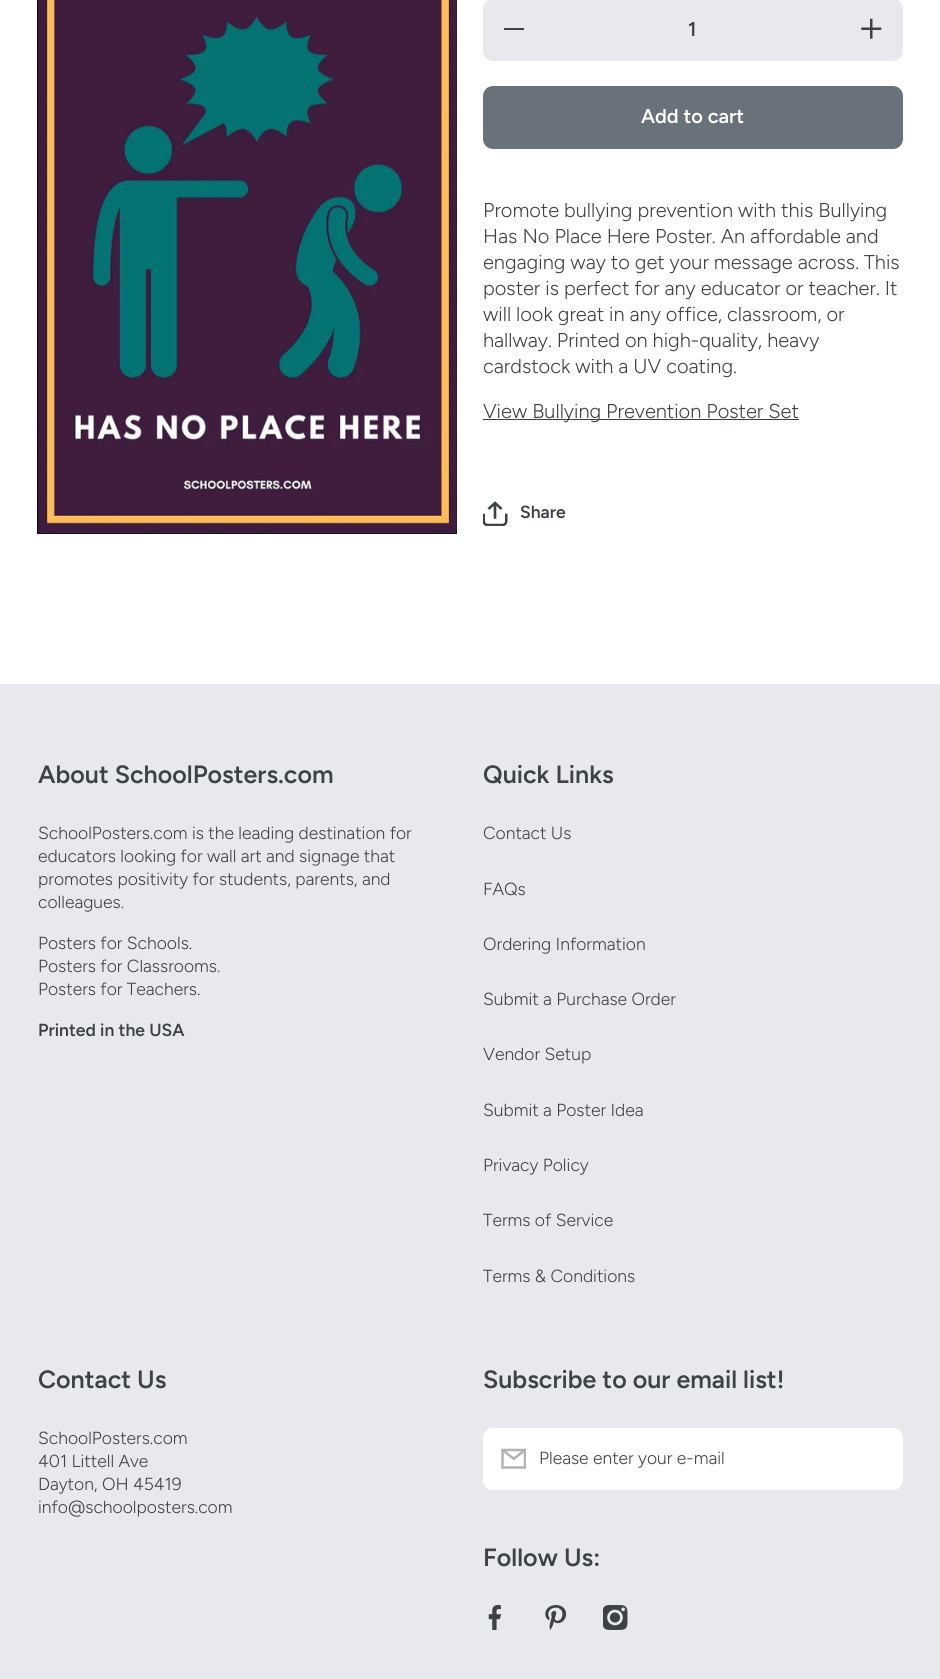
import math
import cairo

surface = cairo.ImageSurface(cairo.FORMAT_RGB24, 940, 1679)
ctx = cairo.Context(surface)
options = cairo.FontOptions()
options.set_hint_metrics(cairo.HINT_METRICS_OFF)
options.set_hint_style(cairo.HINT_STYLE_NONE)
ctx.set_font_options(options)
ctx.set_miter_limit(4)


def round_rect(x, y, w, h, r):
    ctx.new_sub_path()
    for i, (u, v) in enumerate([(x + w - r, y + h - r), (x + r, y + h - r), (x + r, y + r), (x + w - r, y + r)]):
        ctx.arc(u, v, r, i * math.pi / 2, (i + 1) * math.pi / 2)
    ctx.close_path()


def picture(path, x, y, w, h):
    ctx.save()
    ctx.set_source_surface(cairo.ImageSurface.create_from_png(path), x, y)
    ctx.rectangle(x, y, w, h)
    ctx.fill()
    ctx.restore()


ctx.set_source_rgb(1, 1, 1)
ctx.paint()
picture("img1.png", 37, 0, 420, 534)
ctx.set_source_rgb(0.91, 0.914, 0.922)
round_rect(483, -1, 420, 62, 10)
ctx.fill()
ctx.set_source_rgb(0.239, 0.259, 0.275)
ctx.rectangle(504, 28, 20, 2)
ctx.fill()
ctx.select_font_face("Figtree SemiBold")
ctx.set_font_size(20)
ctx.move_to(688, 36)
ctx.show_text("1")
picture("img2.png", 861, 18, 21, 21)
ctx.set_source_rgb(0.412, 0.447, 0.482)
round_rect(483, 86, 420, 63, 10)
ctx.fill()
ctx.set_source_rgb(1, 1, 1)
ctx.move_to(641, 123)
ctx.show_text("Add to cart")
ctx.select_font_face("Figtree Light")
ctx.set_source_rgb(0.239, 0.259, 0.275)
ctx.move_to(483, 217)
ctx.show_text("Promote bullying prevention with this Bullying")
ctx.move_to(483, 243)
ctx.show_text("Has No Place Here Poster. An affordable and")
ctx.move_to(483, 269)
ctx.show_text("engaging way to get your message across. This")
ctx.move_to(483, 295)
ctx.show_text("poster is perfect for any educator or teacher. It")
ctx.move_to(483, 321)
ctx.show_text("will look great in any office, classroom, or")
ctx.move_to(483, 347)
ctx.show_text("hallway. Printed on high-quality, heavy")
ctx.move_to(483, 373)
ctx.show_text("cardstock with a UV coating.")
ctx.rectangle(483, 419, 316, 1)
ctx.fill()
ctx.move_to(483, 418)
ctx.show_text("View Bullying Prevention Poster Set")
picture("img3.png", 483, 501, 25, 25)
ctx.select_font_face("Figtree SemiBold")
ctx.set_font_size(17.5)
ctx.move_to(520, 518)
ctx.show_text("Share")
ctx.set_source_rgb(0.91, 0.914, 0.922)
ctx.rectangle(0, 684, 940, 995)
ctx.fill()
ctx.set_font_size(25)
ctx.set_source_rgb(0.239, 0.259, 0.275)
ctx.move_to(38, 783)
ctx.show_text("About SchoolPosters.com")
ctx.select_font_face("Figtree Light")
ctx.set_font_size(17.5)
ctx.move_to(38, 839)
ctx.show_text("SchoolPosters.com is the leading destination for")
ctx.move_to(38, 862)
ctx.show_text("educators looking for wall art and signage that")
ctx.move_to(38, 885)
ctx.show_text("promotes positivity for students, parents, and")
ctx.move_to(38, 908)
ctx.show_text("colleagues.")
ctx.move_to(38, 949)
ctx.show_text("Posters for Schools.")
ctx.move_to(38, 972)
ctx.show_text("Posters for Classrooms.")
ctx.move_to(38, 995)
ctx.show_text("Posters for Teachers.")
ctx.select_font_face("Figtree SemiBold")
ctx.move_to(38, 1036)
ctx.show_text("Printed in the USA")
ctx.set_font_size(25)
ctx.move_to(483, 783)
ctx.show_text("Quick Links")
ctx.select_font_face("Figtree Light")
ctx.set_font_size(17.5)
ctx.move_to(483, 839)
ctx.show_text("Contact Us")
ctx.move_to(483, 895)
ctx.show_text("FAQs")
ctx.move_to(483, 950)
ctx.show_text("Ordering Information")
ctx.move_to(483, 1005)
ctx.show_text("Submit a Purchase Order")
ctx.move_to(483, 1060)
ctx.show_text("Vendor Setup")
ctx.move_to(483, 1116)
ctx.show_text("Submit a Poster Idea")
ctx.move_to(483, 1171)
ctx.show_text("Privacy Policy")
ctx.move_to(483, 1226)
ctx.show_text("Terms of Service")
ctx.move_to(483, 1282)
ctx.show_text("Terms & Conditions")
ctx.select_font_face("Figtree SemiBold")
ctx.set_font_size(25)
ctx.move_to(38, 1388)
ctx.show_text("Contact Us")
ctx.select_font_face("Figtree Light")
ctx.set_font_size(17.5)
ctx.move_to(38, 1444)
ctx.show_text("SchoolPosters.com")
ctx.move_to(38, 1467)
ctx.show_text("401 Littell Ave")
ctx.move_to(38, 1490)
ctx.show_text("Dayton, OH 45419")
ctx.move_to(38, 1513)
ctx.show_text("info@schoolposters.com")
ctx.select_font_face("Figtree SemiBold")
ctx.set_font_size(25)
ctx.move_to(483, 1388)
ctx.show_text("Subscribe to our email list!")
ctx.set_source_rgb(1, 1, 1)
round_rect(483, 1428, 420, 62, 10)
ctx.fill()
picture("img4.png", 501, 1448, 25, 21)
ctx.select_font_face("Figtree Light")
ctx.set_font_size(17.5)
ctx.set_source_rgb(0.239, 0.259, 0.275)
ctx.move_to(539, 1464)
ctx.show_text("Please enter your e-mail")
ctx.select_font_face("Figtree SemiBold")
ctx.set_font_size(25)
ctx.move_to(483, 1566)
ctx.show_text("Follow Us:")
picture("img5.png", 488, 1605, 14, 25)
picture("img6.png", 545, 1605, 22, 25)
picture("img7.png", 603, 1605, 25, 25)
surface.write_to_png("page.png")
